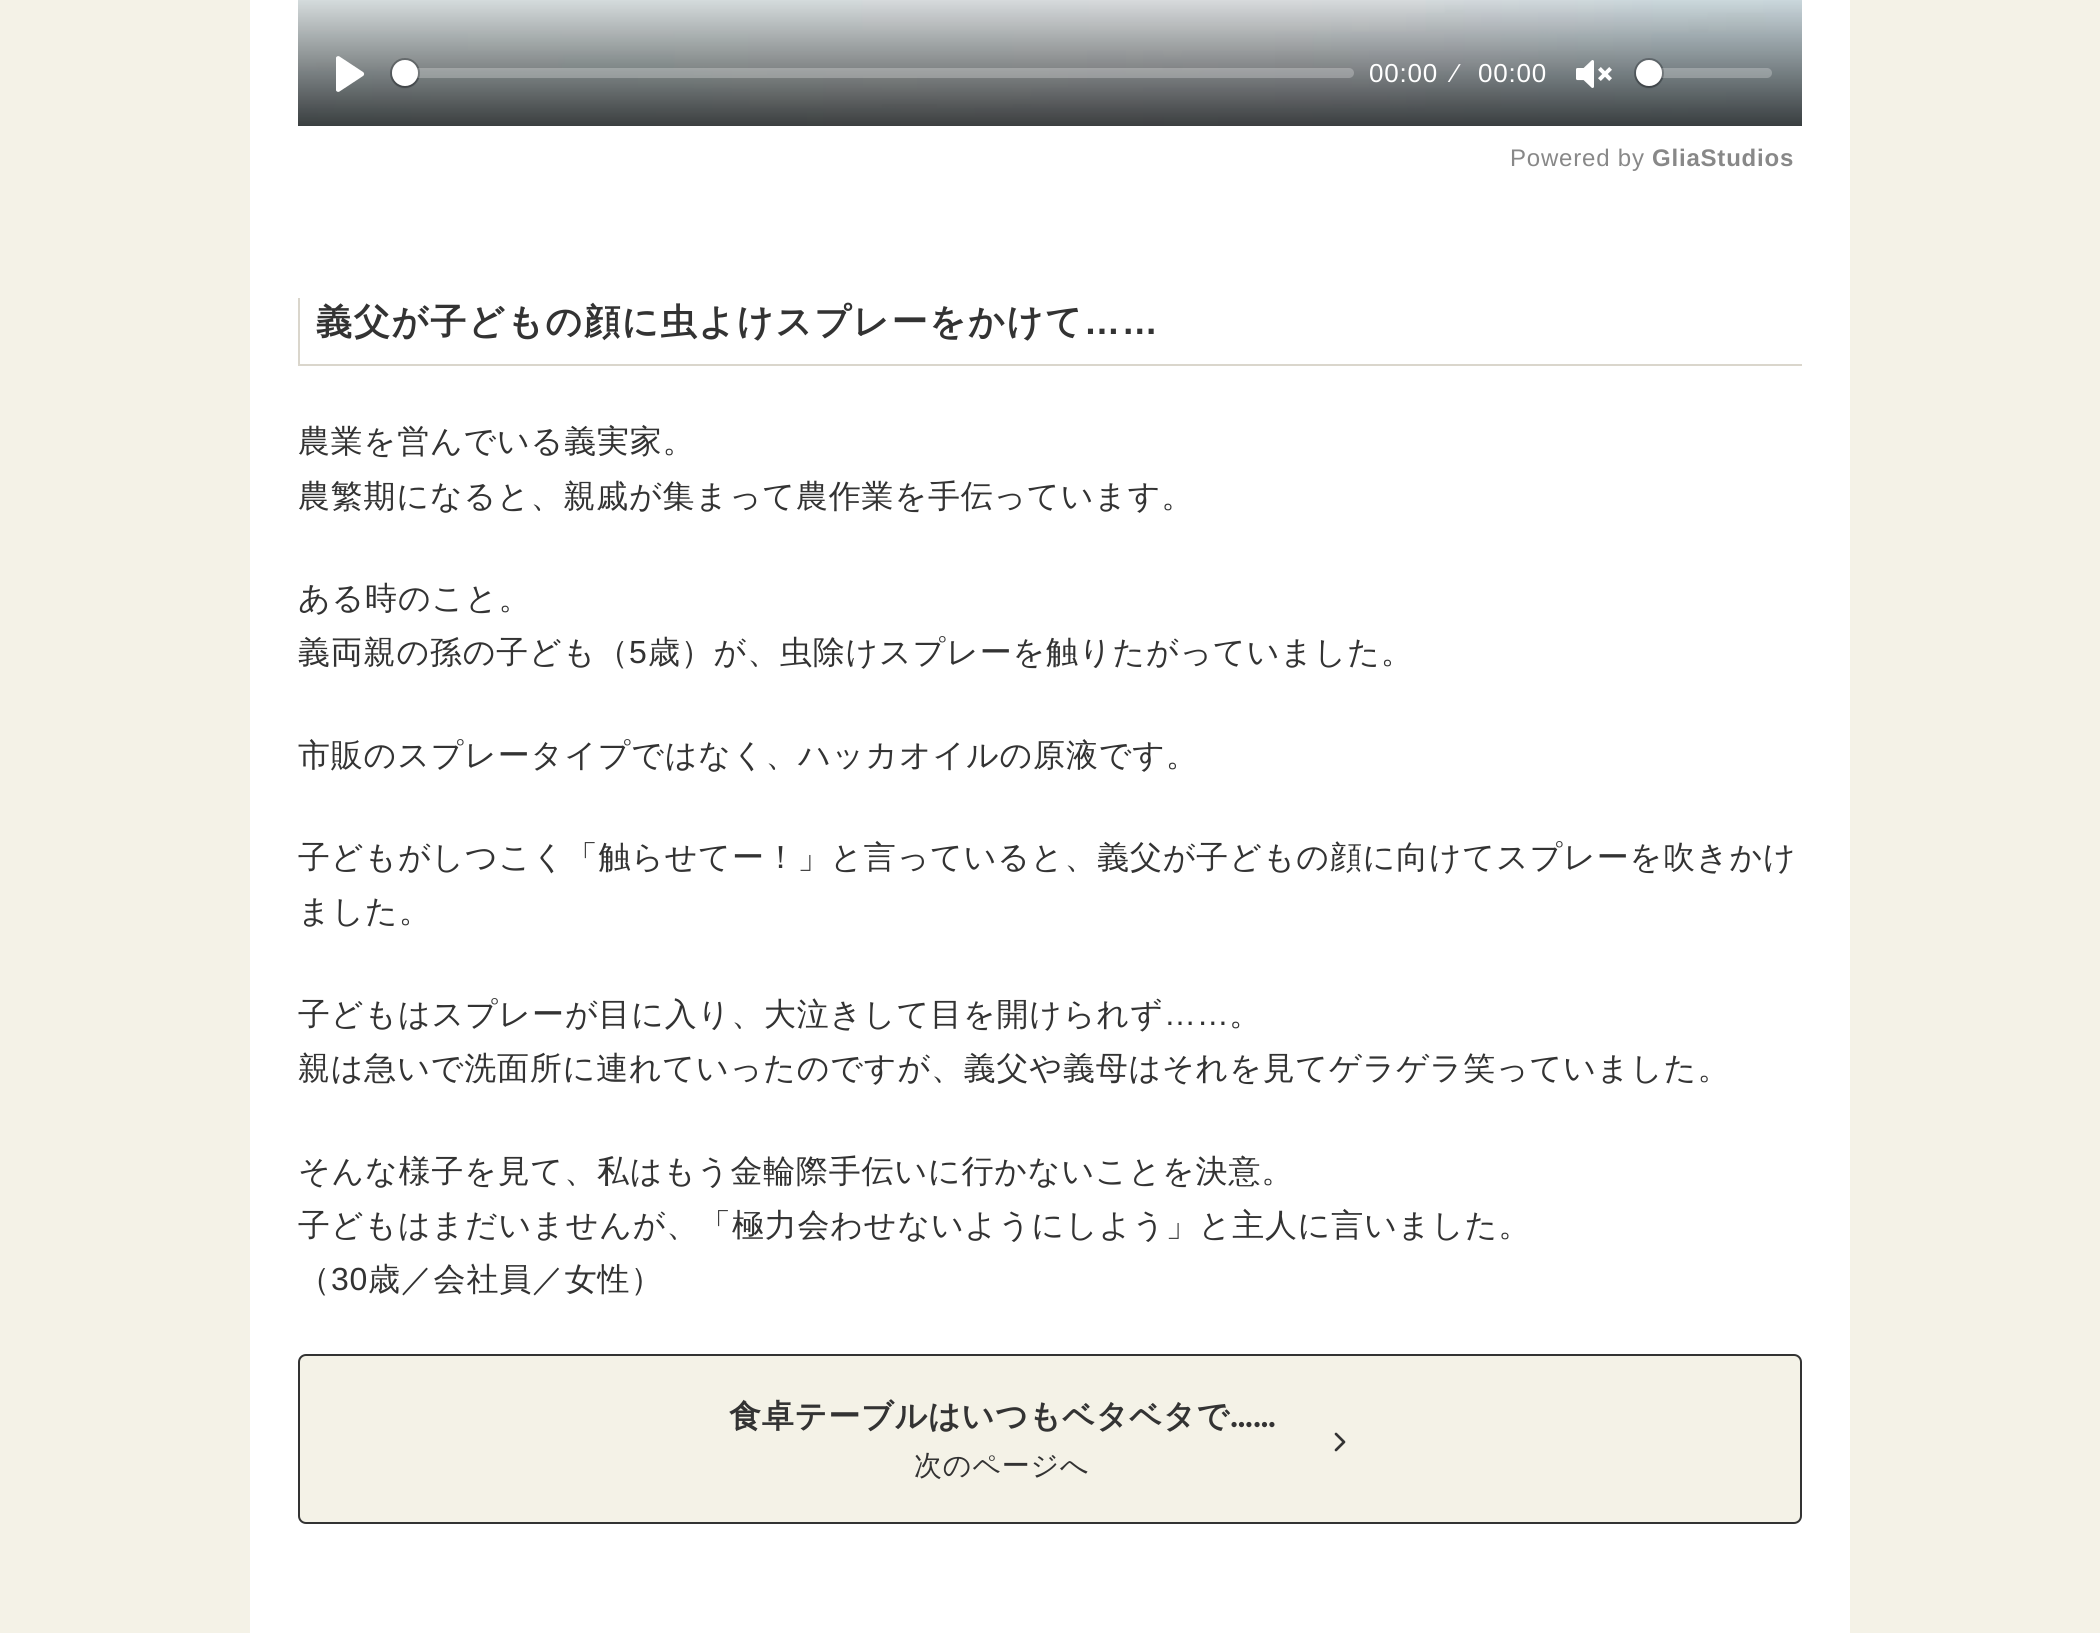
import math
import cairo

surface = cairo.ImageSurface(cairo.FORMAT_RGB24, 2100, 1633)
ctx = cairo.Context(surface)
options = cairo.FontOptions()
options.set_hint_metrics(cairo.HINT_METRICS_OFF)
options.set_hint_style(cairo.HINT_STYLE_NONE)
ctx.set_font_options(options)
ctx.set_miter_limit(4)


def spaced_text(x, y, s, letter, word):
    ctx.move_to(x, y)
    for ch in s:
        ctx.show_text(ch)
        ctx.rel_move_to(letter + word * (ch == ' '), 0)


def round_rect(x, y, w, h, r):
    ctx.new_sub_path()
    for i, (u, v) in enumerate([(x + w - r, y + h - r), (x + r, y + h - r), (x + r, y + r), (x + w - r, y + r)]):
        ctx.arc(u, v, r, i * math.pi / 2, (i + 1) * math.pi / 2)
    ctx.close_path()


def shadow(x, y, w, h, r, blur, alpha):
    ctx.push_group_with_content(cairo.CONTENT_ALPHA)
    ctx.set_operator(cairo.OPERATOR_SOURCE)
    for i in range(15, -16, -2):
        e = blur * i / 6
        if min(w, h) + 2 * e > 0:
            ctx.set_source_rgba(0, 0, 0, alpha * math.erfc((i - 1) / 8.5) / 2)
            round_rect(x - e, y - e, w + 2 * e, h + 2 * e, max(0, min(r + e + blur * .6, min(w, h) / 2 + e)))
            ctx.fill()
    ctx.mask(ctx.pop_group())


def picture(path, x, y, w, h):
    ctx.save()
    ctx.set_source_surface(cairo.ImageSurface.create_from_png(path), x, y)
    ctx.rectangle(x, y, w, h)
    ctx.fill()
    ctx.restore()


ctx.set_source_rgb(0.957, 0.949, 0.906)
ctx.paint()
ctx.set_source_rgb(1, 1, 1)
ctx.rectangle(250, 0, 1600, 1633)
ctx.fill()
picture("img1.png", 298, 0, 1504, 126)
ctx.new_path()
ctx.move_to(363, 72)
ctx.line_to(339.5, 56.5)
ctx.curve_to(338, 55.5, 336, 56.5, 336, 58)
ctx.line_to(336, 90)
ctx.curve_to(336, 91.5, 338, 92.5, 339.5, 91.5)
ctx.line_to(363, 76)
ctx.curve_to(364.5, 75, 364.5, 73, 363, 72)
ctx.close_path()
ctx.fill()
ctx.set_source_rgba(1, 1, 1, 0.25)
round_rect(392, 68, 962, 10, 5)
ctx.fill()
ctx.arc(405, 73, 14, 0, 2 * math.pi)
ctx.set_source_rgba(0.137, 0.157, 0.184, 0.2)
ctx.stroke()
ctx.set_source_rgb(0.137, 0.157, 0.184)
shadow(392, 62, 26, 26, 13, 1, 0.15)
ctx.set_source_rgb(1, 1, 1)
ctx.arc(405, 73, 13, 0, 2 * math.pi)
ctx.fill()
ctx.select_font_face("Liberation Sans")
ctx.set_font_size(26)
spaced_text(1369, 82, "00:00", 0.8, 0)
spaced_text(1453, 82, "⁄", 0.8, 0)
spaced_text(1478, 82, "00:00", 0.8, 0)
picture("img2.png", 1576, 60, 36, 28)
ctx.set_source_rgba(1, 1, 1, 0.25)
round_rect(1636, 68, 136, 10, 5)
ctx.fill()
ctx.arc(1649, 73, 14, 0, 2 * math.pi)
ctx.set_source_rgba(0.137, 0.157, 0.184, 0.2)
ctx.stroke()
ctx.set_source_rgb(0.137, 0.157, 0.184)
shadow(1636, 62, 26, 26, 13, 1, 0.15)
ctx.set_source_rgb(1, 1, 1)
ctx.arc(1649, 73, 13, 0, 2 * math.pi)
ctx.fill()
ctx.set_font_size(24)
ctx.set_source_rgb(0.533, 0.533, 0.533)
spaced_text(1510, 166, "Powered by", 0.8, 0)
ctx.select_font_face("Liberation Sans", cairo.FONT_SLANT_NORMAL, cairo.FONT_WEIGHT_BOLD)
spaced_text(1652, 166, "GliaStudios", 0.8, 0)
ctx.set_source_rgb(0.855, 0.839, 0.8)
ctx.rectangle(298, 364, 1504, 2)
ctx.fill()
ctx.rectangle(298, 298, 2, 68)
ctx.fill()
ctx.select_font_face("WenQuanYi Zen Hei", cairo.FONT_SLANT_NORMAL, cairo.FONT_WEIGHT_BOLD)
ctx.set_font_size(36)
ctx.set_source_rgb(0.2, 0.2, 0.2)
spaced_text(316, 334, "義父が子どもの顔に虫よけスプレーをかけて", 1.8, 0)
ctx.select_font_face("Liberation Sans", cairo.FONT_SLANT_NORMAL, cairo.FONT_WEIGHT_BOLD)
spaced_text(1084, 334, "……", 1.8, 0)
ctx.select_font_face("WenQuanYi Zen Hei Medium")
ctx.set_font_size(32)
spaced_text(298, 452, "農業を営んでいる義実家。", 0.8, 0)
spaced_text(298, 507, "農繁期になると、親戚が集まって農作業を手伝っています。", 0.8, 0)
spaced_text(298, 609, "ある時のこと。", 0.8, 0)
spaced_text(298, 663, "義両親の孫の子ども（", 0.8, 0)
ctx.select_font_face("Liberation Sans")
spaced_text(629, 663, "5", 0.8, 0)
ctx.select_font_face("WenQuanYi Zen Hei Medium")
spaced_text(648, 663, "歳）が、虫除けスプレーを触りたがっていました。", 0.8, 0)
spaced_text(298, 766, "市販のスプレータイプではなく、ハッカオイルの原液です。", 0.8, 0)
spaced_text(298, 868, "子どもがしつこく「触らせてー！」と言っていると、義父が子どもの顔に向けてスプレーを吹きかけ", 0.8, 0)
spaced_text(298, 922, "ました。", 0.8, 0)
spaced_text(298, 1025, "子どもはスプレーが目に入り、大泣きして目を開けられず", 0.8, 0)
ctx.select_font_face("Liberation Sans")
spaced_text(1164, 1025, "……", 0.8, 0)
ctx.select_font_face("WenQuanYi Zen Hei Medium")
spaced_text(1229, 1025, "。", 0.8, 0)
spaced_text(298, 1079, "親は急いで洗面所に連れていったのですが、義父や義母はそれを見てゲラゲラ笑っていました。", 0.8, 0)
spaced_text(298, 1182, "そんな様子を見て、私はもう金輪際手伝いに行かないことを決意。", 0.8, 0)
spaced_text(298, 1236, "子どもはまだいませんが、「極力会わせないようにしよう」と主人に言いました。", 0.8, 0)
spaced_text(298, 1290, "（", 0.8, 0)
ctx.select_font_face("Liberation Sans")
spaced_text(331, 1290, "30", 0.8, 0)
ctx.select_font_face("WenQuanYi Zen Hei Medium")
spaced_text(368, 1290, "歳／会社員／女性）", 0.8, 0)
ctx.set_source_rgb(0.957, 0.949, 0.906)
round_rect(299, 1355, 1502, 168, 7)
ctx.fill_preserve()
ctx.set_source_rgb(0.2, 0.2, 0.2)
ctx.stroke()
ctx.select_font_face("WenQuanYi Zen Hei", cairo.FONT_SLANT_NORMAL, cairo.FONT_WEIGHT_BOLD)
spaced_text(729, 1427, "食卓テーブルはいつもベタベタで", 0.8, 0)
ctx.select_font_face("Montserrat", cairo.FONT_SLANT_NORMAL, cairo.FONT_WEIGHT_BOLD)
spaced_text(1230, 1427, "……", 0.8, 0)
ctx.select_font_face("WenQuanYi Zen Hei Medium")
ctx.set_font_size(28)
spaced_text(914, 1475, "次のページへ", 0.8, 0)
ctx.new_path()
ctx.move_to(1336, 1450)
ctx.line_to(1344, 1442)
ctx.line_to(1336, 1434)
ctx.set_line_width(2.7)
ctx.set_line_cap(cairo.LINE_CAP_ROUND)
ctx.set_line_join(cairo.LINE_JOIN_ROUND)
ctx.stroke()
surface.write_to_png("page.png")
